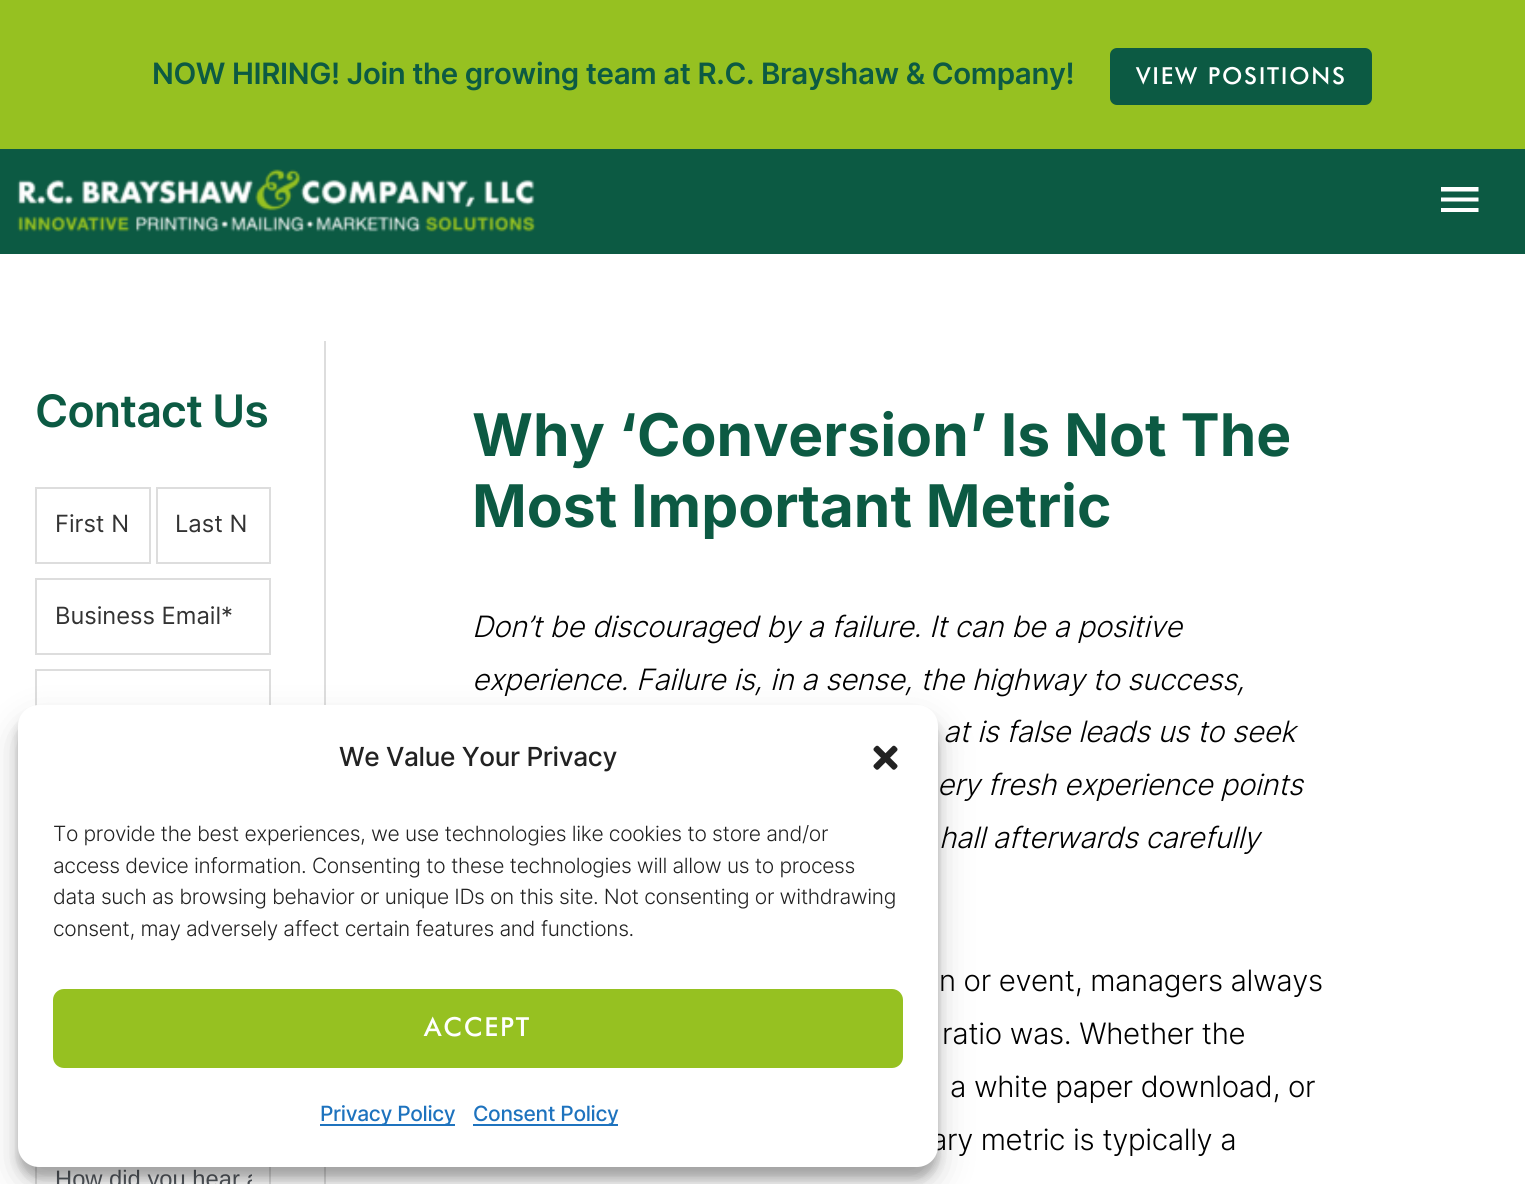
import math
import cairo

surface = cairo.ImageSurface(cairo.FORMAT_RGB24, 1525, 1184)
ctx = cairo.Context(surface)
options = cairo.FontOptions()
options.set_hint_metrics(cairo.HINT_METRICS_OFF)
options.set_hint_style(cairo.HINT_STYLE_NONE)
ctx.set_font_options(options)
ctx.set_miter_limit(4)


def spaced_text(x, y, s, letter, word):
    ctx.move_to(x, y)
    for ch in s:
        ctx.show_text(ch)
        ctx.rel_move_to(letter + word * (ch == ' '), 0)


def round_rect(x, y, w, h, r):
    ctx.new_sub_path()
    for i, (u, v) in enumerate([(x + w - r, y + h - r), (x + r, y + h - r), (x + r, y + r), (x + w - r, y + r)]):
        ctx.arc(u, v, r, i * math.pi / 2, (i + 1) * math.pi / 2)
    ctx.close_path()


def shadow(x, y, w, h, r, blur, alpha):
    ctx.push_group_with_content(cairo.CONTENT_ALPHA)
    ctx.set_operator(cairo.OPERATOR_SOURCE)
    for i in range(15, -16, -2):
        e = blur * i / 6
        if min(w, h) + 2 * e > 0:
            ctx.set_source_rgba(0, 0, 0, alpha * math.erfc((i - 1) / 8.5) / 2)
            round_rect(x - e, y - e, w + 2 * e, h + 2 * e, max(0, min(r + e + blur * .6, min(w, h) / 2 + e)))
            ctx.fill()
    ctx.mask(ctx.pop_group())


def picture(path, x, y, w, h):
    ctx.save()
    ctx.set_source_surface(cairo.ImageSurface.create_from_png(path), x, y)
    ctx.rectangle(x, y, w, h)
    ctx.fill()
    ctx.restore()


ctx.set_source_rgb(1, 1, 1)
ctx.paint()
ctx.set_source_rgb(0.588, 0.757, 0.129)
ctx.rectangle(0, 0, 1525, 149)
ctx.fill()
ctx.select_font_face("Inter SemiBold")
ctx.set_font_size(29.4)
ctx.set_source_rgb(0.047, 0.353, 0.263)
spaced_text(152, 84, "NOW HIRING! Join the growing team at R.C. Brayshaw & Company!", -0.35, 0)
round_rect(1109, 47, 264, 59, 8)
ctx.fill_preserve()
ctx.set_source_rgb(0.588, 0.757, 0.129)
ctx.stroke()
ctx.select_font_face("Futura Medium")
ctx.set_font_size(23.5)
ctx.set_source_rgb(1, 1, 1)
spaced_text(1136, 84, "VIEW POSITIONS", 1.75, 0)
ctx.set_source_rgb(0.047, 0.353, 0.263)
ctx.rectangle(0, 149, 1525, 105)
ctx.fill()
picture("img1.png", 17, 169, 519, 63)
ctx.set_source_rgb(1, 1, 1)
ctx.new_path()
ctx.move_to(1441, 187)
ctx.line_to(1478.5, 187)
ctx.line_to(1478.5, 191.5)
ctx.line_to(1441, 191.5)
ctx.close_path()
ctx.move_to(1441, 201.5)
ctx.line_to(1441, 197.5)
ctx.line_to(1478.5, 197.5)
ctx.line_to(1478.5, 201.5)
ctx.close_path()
ctx.move_to(1441, 212)
ctx.line_to(1441, 208)
ctx.line_to(1478.5, 208)
ctx.line_to(1478.5, 212)
ctx.close_path()
ctx.fill()
ctx.select_font_face("Inter SemiBold")
ctx.set_font_size(44.75)
ctx.set_source_rgb(0.047, 0.353, 0.263)
spaced_text(35, 427, "Contact Us", -0.9, 0)
ctx.rectangle(36, 488, 114, 75)
ctx.set_source_rgb(0.867, 0.867, 0.867)
ctx.stroke()
ctx.select_font_face("Inter")
ctx.set_font_size(23.75)
ctx.set_source_rgb(0.2, 0.2, 0.2)
ctx.move_to(55, 532)
ctx.show_text("First N")
ctx.rectangle(157, 488, 113, 75)
ctx.set_source_rgb(0.867, 0.867, 0.867)
ctx.stroke()
ctx.set_source_rgb(0.2, 0.2, 0.2)
ctx.move_to(175, 532)
ctx.show_text("Last N")
ctx.rectangle(36, 579, 234, 75)
ctx.set_source_rgb(0.867, 0.867, 0.867)
ctx.stroke()
ctx.set_source_rgb(0.2, 0.2, 0.2)
ctx.move_to(55, 624)
ctx.show_text("Business Email*")
ctx.rectangle(36, 670, 234, 75)
ctx.set_source_rgb(0.867, 0.867, 0.867)
ctx.stroke()
ctx.rectangle(36, 1142, 234, 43)
ctx.stroke()
ctx.save()
ctx.rectangle(54, 1160, 198, 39)
ctx.clip()
ctx.select_font_face("Liberation Sans")
ctx.set_source_rgb(0.329, 0.349, 0.373)
ctx.move_to(55, 1187)
ctx.show_text("How did you hear a")
ctx.restore()
ctx.rectangle(324, 341, 2, 843)
ctx.fill()
ctx.select_font_face("Inter", cairo.FONT_SLANT_NORMAL, cairo.FONT_WEIGHT_BOLD)
ctx.set_font_size(58.75)
ctx.set_source_rgb(0.047, 0.353, 0.263)
ctx.move_to(472, 456)
ctx.show_text("Why ‘Conversion’ Is Not The")
ctx.move_to(472, 527)
ctx.show_text("Most Important Metric")
ctx.select_font_face("Inter Light", cairo.FONT_SLANT_ITALIC)
ctx.set_font_size(29.4)
ctx.set_source_rgb(0, 0, 0)
spaced_text(472, 637, "Don’t be discouraged by a failure. It can be a positive", -0.35, 0)
spaced_text(472, 690, "experience. Failure is, in a sense, the highway to success,", -0.35, 0)
spaced_text(943, 742, "at is false leads us to seek", -0.35, 0)
spaced_text(937, 795, "ery fresh experience points", -0.35, 0)
spaced_text(939, 848, "hall afterwards carefully", -0.35, 0)
ctx.select_font_face("Inter Light")
spaced_text(939, 991, "n or event, managers always", -0.35, 0)
spaced_text(942, 1044, "ratio was. Whether the", -0.35, 0)
spaced_text(950, 1097, "a white paper download, or", -0.35, 0)
spaced_text(931, 1150, "ary metric is typically a", -0.35, 0)
ctx.set_source_rgb(0, 0, 0)
shadow(18, 716, 920, 462, 21, 5, 0.23)
shadow(18, 723, 920, 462, 21, 17.5, 0.19)
ctx.set_source_rgb(1, 1, 1)
round_rect(18, 705, 920, 462, 21)
ctx.fill()
ctx.select_font_face("Inter Medium")
ctx.set_font_size(26.25)
ctx.set_source_rgb(0.133, 0.133, 0.133)
spaced_text(339, 766, "We Value Your Privacy", -0.35, 0)
picture("img2.png", 873, 745, 25, 25)
ctx.select_font_face("Inter Light")
ctx.set_font_size(21)
spaced_text(53, 841, "To provide the best experiences, we use technologies like cookies to store and/or", -0.35, 0)
spaced_text(53, 873, "access device information. Consenting to these technologies will allow us to process", -0.35, 0)
spaced_text(53, 904, "data such as browsing behavior or unique IDs on this site. Not consenting or withdrawing", -0.35, 0)
spaced_text(53, 936, "consent, may adversely affect certain features and functions.", -0.35, 0)
ctx.set_source_rgb(0.588, 0.757, 0.129)
round_rect(54, 990, 848, 77, 10)
ctx.fill_preserve()
ctx.stroke()
ctx.select_font_face("Futura Medium")
ctx.set_font_size(26.25)
ctx.set_source_rgb(1, 1, 1)
spaced_text(424, 1036, "ACCEPT", 1.75, 0)
ctx.set_source_rgb(0.118, 0.451, 0.745)
ctx.rectangle(320, 1124, 135, 2)
ctx.fill()
ctx.select_font_face("Inter Medium")
ctx.set_font_size(21)
spaced_text(320, 1121, "Privacy Policy", -0.35, 0)
ctx.rectangle(473, 1124, 145, 2)
ctx.fill()
spaced_text(473, 1121, "Consent Policy", -0.35, 0)
surface.write_to_png("page.png")
